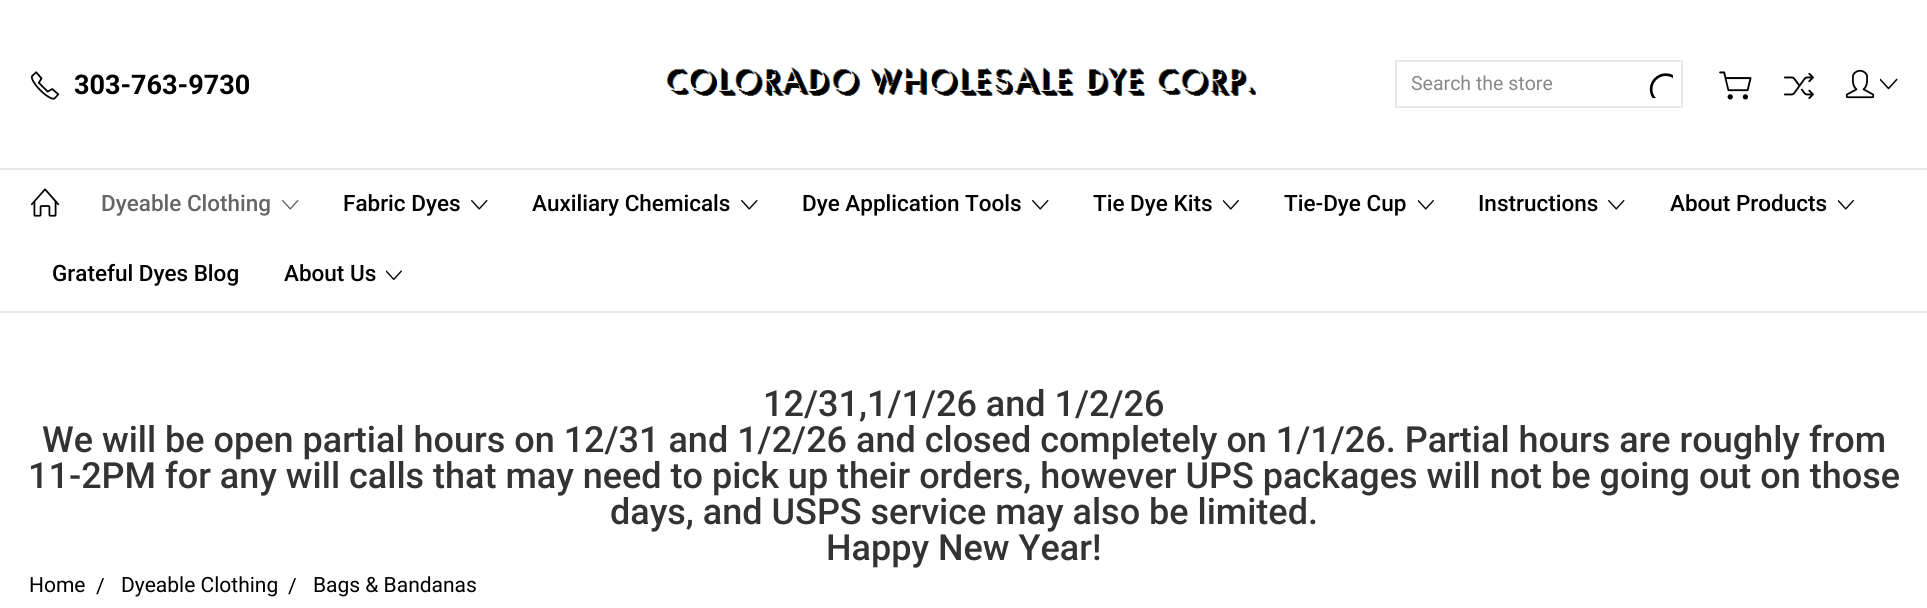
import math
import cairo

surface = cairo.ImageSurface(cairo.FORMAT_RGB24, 1927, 608)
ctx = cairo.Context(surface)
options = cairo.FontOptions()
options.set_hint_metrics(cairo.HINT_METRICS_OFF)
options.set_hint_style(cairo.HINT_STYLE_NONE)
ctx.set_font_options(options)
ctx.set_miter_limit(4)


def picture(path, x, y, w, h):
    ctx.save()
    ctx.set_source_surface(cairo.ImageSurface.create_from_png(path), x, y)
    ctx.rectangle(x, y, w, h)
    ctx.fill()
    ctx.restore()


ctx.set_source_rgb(1, 1, 1)
ctx.paint()
picture("img1.png", 31, 71, 29, 29)
ctx.select_font_face("Roboto", cairo.FONT_SLANT_NORMAL, cairo.FONT_WEIGHT_BOLD)
ctx.set_font_size(27)
ctx.set_source_rgb(0, 0, 0)
ctx.move_to(74, 94)
ctx.show_text("303-763-9730")
picture("img2.png", 666, 67, 591, 29)
ctx.rectangle(1396, 61, 286, 46)
ctx.set_source_rgb(0.91, 0.91, 0.91)
ctx.stroke()
ctx.select_font_face("Roboto")
ctx.set_font_size(19.5)
ctx.set_source_rgb(0.533, 0.533, 0.533)
ctx.move_to(1411, 90)
ctx.show_text("Search the store")
picture("img3.png", 1649, 73, 24, 25)
picture("img4.png", 1719, 71, 33, 29)
picture("img5.png", 1784, 72, 30, 28)
picture("img6.png", 1845, 69, 30, 30)
picture("img7.png", 1880, 78, 18, 12)
ctx.set_source_rgb(0.91, 0.91, 0.91)
ctx.rectangle(0, 168, 1927, 2)
ctx.fill()
ctx.rectangle(0, 311, 1927, 2)
ctx.fill()
picture("img8.png", 30, 188, 30, 29)
ctx.select_font_face("Roboto Medium")
ctx.set_font_size(22.5)
ctx.set_source_rgb(0.396, 0.396, 0.396)
ctx.move_to(101, 211)
ctx.show_text("Dyeable Clothing")
picture("img9.png", 282, 200, 17, 10)
ctx.set_source_rgb(0, 0, 0)
ctx.move_to(343, 211)
ctx.show_text("Fabric Dyes")
picture("img10.png", 471, 200, 17, 10)
ctx.move_to(532, 211)
ctx.show_text("Auxiliary Chemicals")
picture("img10.png", 741, 200, 17, 10)
ctx.move_to(802, 211)
ctx.show_text("Dye Application Tools")
picture("img10.png", 1032, 200, 17, 10)
ctx.move_to(1093, 211)
ctx.show_text("Tie Dye Kits")
picture("img11.png", 1223, 200, 16, 10)
ctx.move_to(1284, 211)
ctx.show_text("Tie-Dye Cup")
picture("img11.png", 1418, 200, 16, 10)
ctx.move_to(1478, 211)
ctx.show_text("Instructions")
picture("img10.png", 1608, 200, 17, 10)
ctx.move_to(1670, 211)
ctx.show_text("About Products")
picture("img11.png", 1838, 200, 16, 10)
ctx.move_to(52, 281)
ctx.show_text("Grateful Dyes Blog")
ctx.move_to(284, 281)
ctx.show_text("About Us")
picture("img12.png", 386, 270, 16, 10)
ctx.set_font_size(36)
ctx.set_source_rgb(0.2, 0.2, 0.2)
ctx.move_to(763, 416)
ctx.show_text("12/31,1/1/26 and 1/2/26")
ctx.move_to(42, 452)
ctx.show_text("We will be open partial hours on 12/31 and 1/2/26 and closed completely on 1/1/26. Partial hours are roughly from")
ctx.move_to(28, 488)
ctx.show_text("11-2PM for any will calls that may need to pick up their orders, however UPS packages will not be going out on those")
ctx.move_to(610, 524)
ctx.show_text("days, and USPS service may also be limited.")
ctx.move_to(826, 560)
ctx.show_text("Happy New Year!")
ctx.select_font_face("Roboto")
ctx.set_font_size(21)
ctx.set_source_rgb(0, 0, 0)
ctx.move_to(29, 592)
ctx.show_text("Home")
ctx.move_to(96, 593)
ctx.show_text("/")
ctx.move_to(121, 592)
ctx.show_text("Dyeable Clothing")
ctx.move_to(288, 593)
ctx.show_text("/")
ctx.move_to(313, 592)
ctx.show_text("Bags & Bandanas")
surface.write_to_png("page.png")
